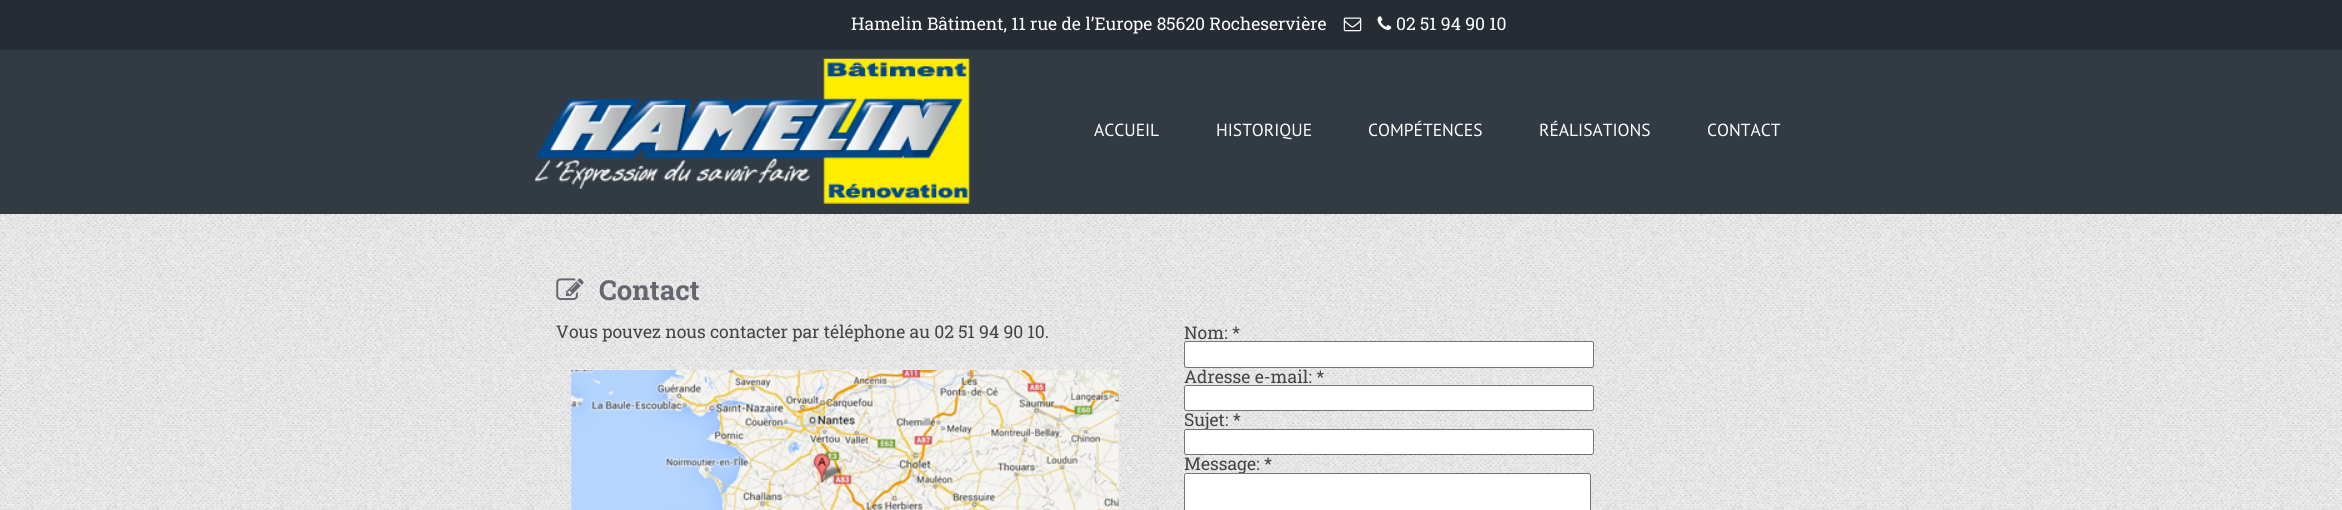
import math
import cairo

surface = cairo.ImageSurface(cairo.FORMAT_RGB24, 2342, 510)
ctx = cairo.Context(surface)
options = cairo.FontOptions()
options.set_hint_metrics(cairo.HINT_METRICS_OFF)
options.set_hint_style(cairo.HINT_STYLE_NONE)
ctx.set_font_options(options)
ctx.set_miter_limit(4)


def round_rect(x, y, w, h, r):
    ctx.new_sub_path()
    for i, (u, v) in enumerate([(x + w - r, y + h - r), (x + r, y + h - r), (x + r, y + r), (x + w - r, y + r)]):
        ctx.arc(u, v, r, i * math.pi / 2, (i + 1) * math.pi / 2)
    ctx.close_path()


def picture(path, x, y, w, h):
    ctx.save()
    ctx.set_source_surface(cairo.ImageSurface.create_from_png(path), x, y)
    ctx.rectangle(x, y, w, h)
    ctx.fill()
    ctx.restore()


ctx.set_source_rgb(1, 1, 1)
ctx.paint()
picture("img1.png", 0, 214, 2342, 296)
ctx.set_source_rgb(0.149, 0.173, 0.2)
ctx.rectangle(0, 0, 2342, 50)
ctx.fill()
ctx.select_font_face("Roboto Slab")
ctx.set_font_size(17.5)
ctx.set_source_rgb(1, 1, 1)
ctx.move_to(851, 30)
ctx.show_text("Hamelin Bâtiment, 11 rue de l’Europe 85620 Rocheservière")
picture("img2.png", 1343, 17, 19, 15)
picture("img3.png", 1377, 16, 15, 14)
ctx.move_to(1396, 30)
ctx.show_text("02 51 94 90 10")
ctx.set_source_rgb(0.196, 0.231, 0.267)
ctx.rectangle(0, 50, 2342, 164)
ctx.fill()
picture("img4.png", 534, 58, 437, 146)
ctx.select_font_face("PT Sans")
ctx.set_source_rgb(1, 1, 1)
ctx.move_to(1094, 136)
ctx.show_text("ACCUEIL")
ctx.move_to(1216, 136)
ctx.show_text("HISTORIQUE")
ctx.move_to(1368, 136)
ctx.show_text("COMPÉTENCES")
ctx.move_to(1539, 136)
ctx.show_text("RÉALISATIONS")
ctx.move_to(1707, 136)
ctx.show_text("CONTACT")
picture("img5.png", 556, 278, 28, 22)
ctx.select_font_face("Roboto Slab", cairo.FONT_SLANT_NORMAL, cairo.FONT_WEIGHT_BOLD)
ctx.set_font_size(27.5)
ctx.set_source_rgb(0.396, 0.404, 0.435)
ctx.move_to(599, 300)
ctx.show_text("Contact")
ctx.select_font_face("Roboto Slab")
ctx.set_font_size(17.5)
ctx.set_source_rgb(0.267, 0.267, 0.267)
ctx.move_to(556, 338)
ctx.show_text("Vous pouvez nous contacter par téléphone au 02 51 94 90 10.")
picture("img6.png", 571, 370, 548, 140)
ctx.move_to(1184, 339)
ctx.show_text("Nom: *")
ctx.set_source_rgb(1, 1, 1)
round_rect(1184.5, 341.5, 409, 26, 2)
ctx.fill_preserve()
ctx.set_source_rgb(0.463, 0.463, 0.463)
ctx.set_line_width(1)
ctx.stroke()
ctx.set_source_rgb(0.267, 0.267, 0.267)
ctx.move_to(1184, 383)
ctx.show_text("Adresse e-mail: *")
ctx.set_source_rgb(1, 1, 1)
round_rect(1184.5, 385.5, 409, 25, 2)
ctx.fill_preserve()
ctx.set_source_rgb(0.463, 0.463, 0.463)
ctx.stroke()
ctx.set_source_rgb(0.267, 0.267, 0.267)
ctx.move_to(1184, 426)
ctx.show_text("Sujet: *")
ctx.set_source_rgb(1, 1, 1)
round_rect(1184.5, 429.5, 409, 25, 2)
ctx.fill_preserve()
ctx.set_source_rgb(0.463, 0.463, 0.463)
ctx.stroke()
ctx.set_source_rgb(0.267, 0.267, 0.267)
ctx.move_to(1184, 470)
ctx.show_text("Message: *")
ctx.set_source_rgb(1, 1, 1)
round_rect(1184.5, 473.5, 406, 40, 2)
ctx.fill_preserve()
ctx.set_source_rgb(0.463, 0.463, 0.463)
ctx.stroke()
surface.write_to_png("page.png")
